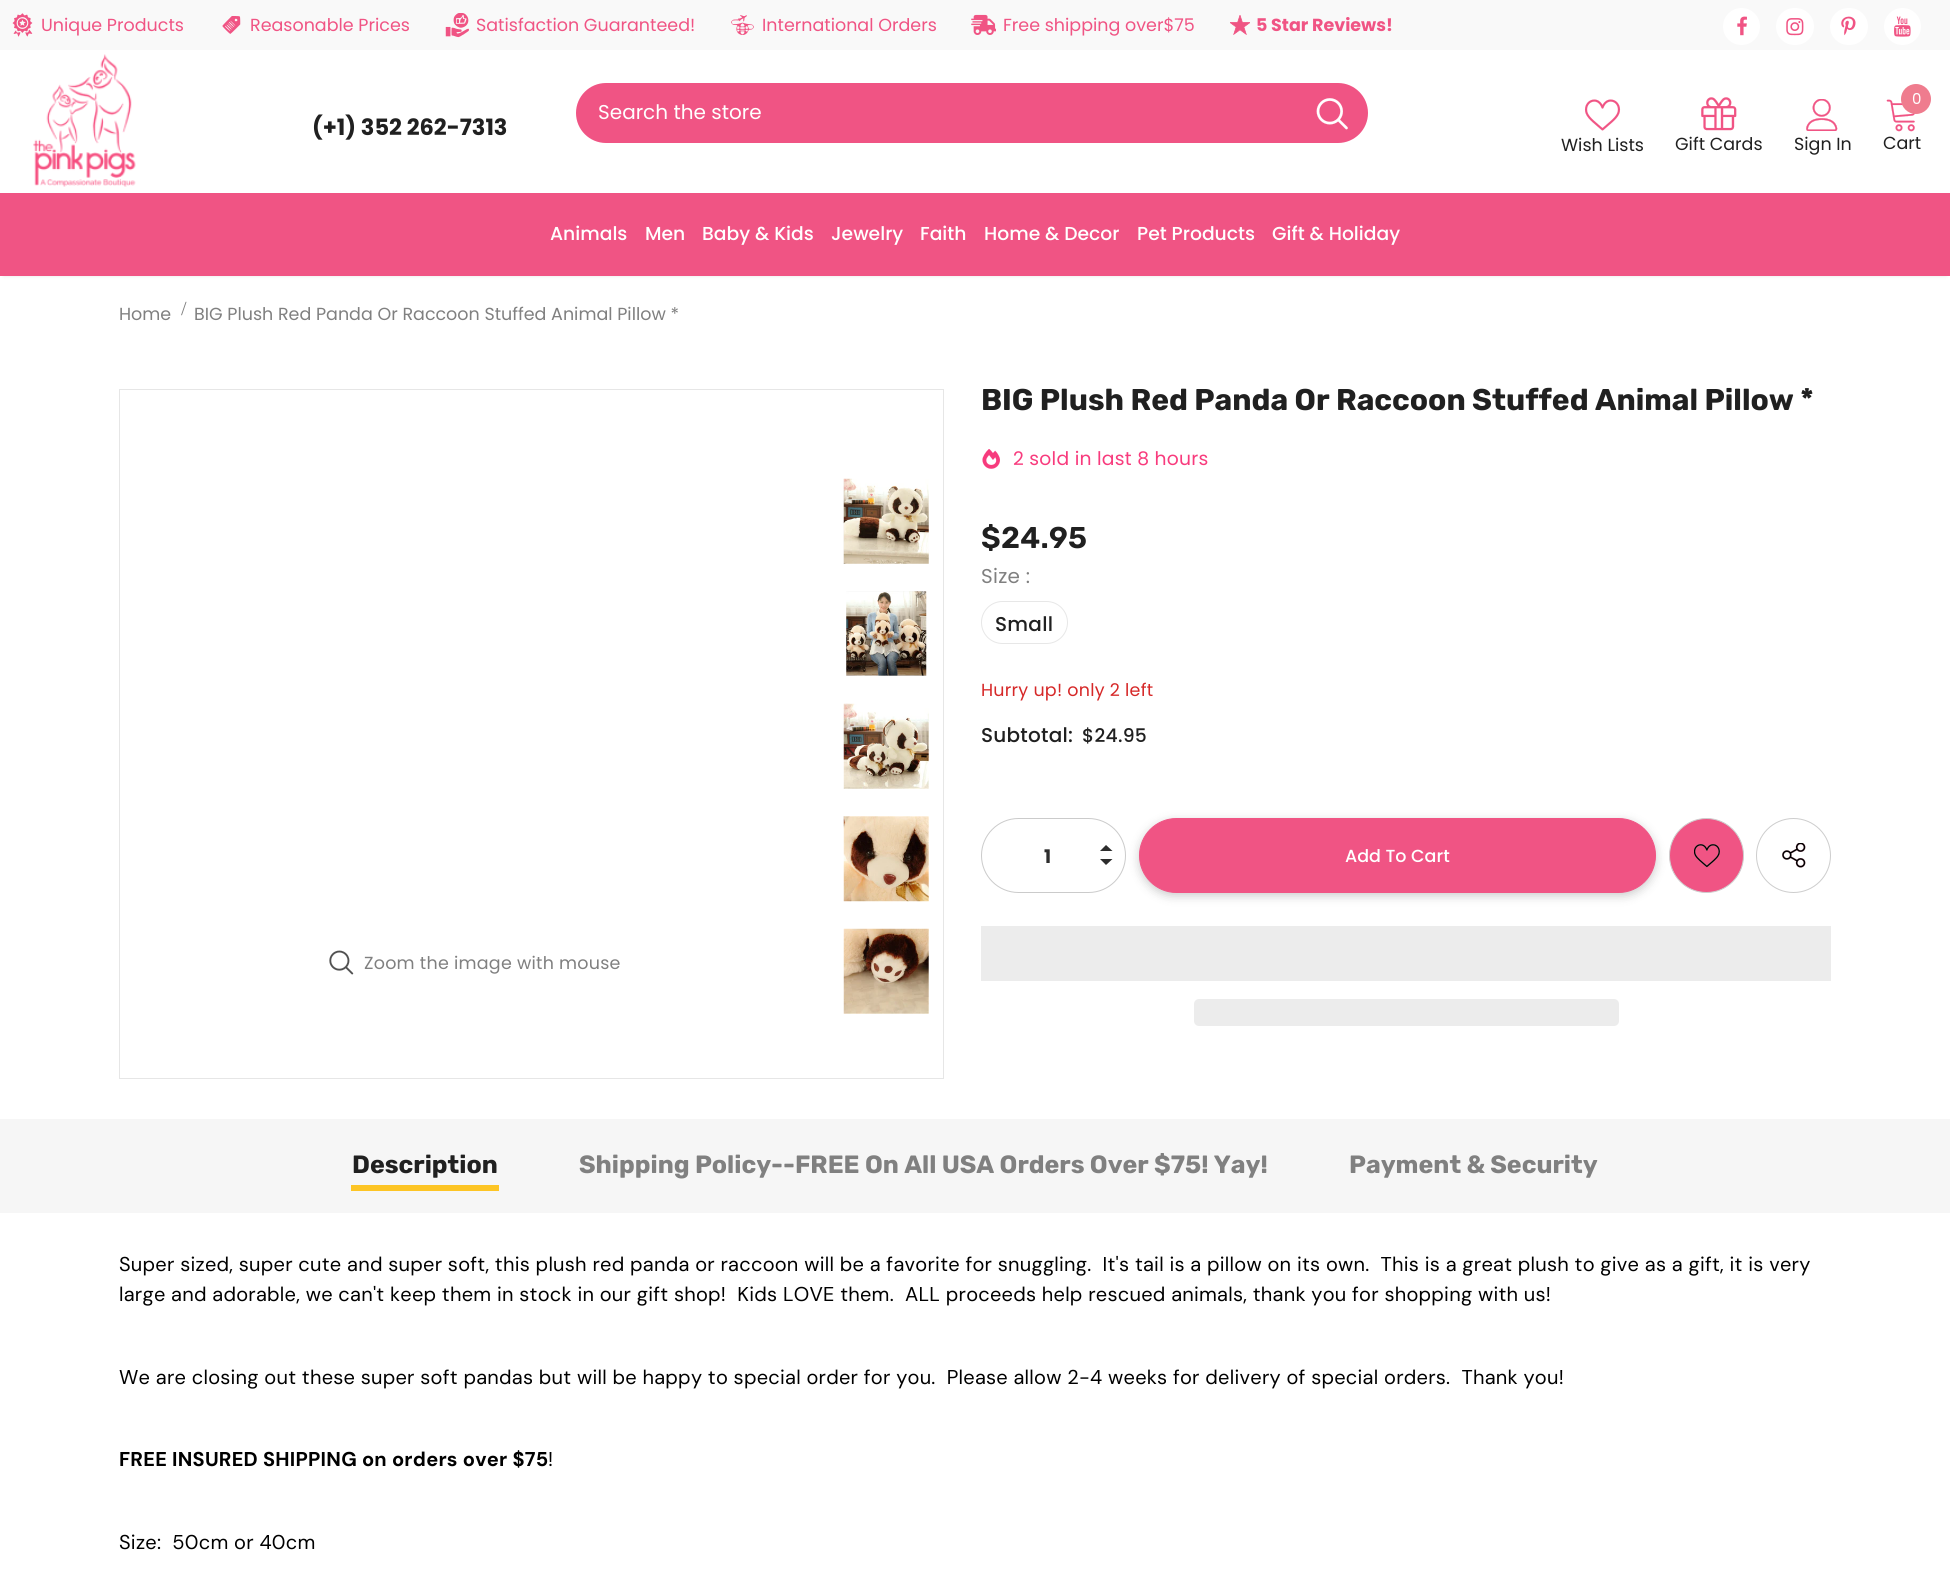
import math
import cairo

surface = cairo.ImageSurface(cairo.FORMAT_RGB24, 1950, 1593)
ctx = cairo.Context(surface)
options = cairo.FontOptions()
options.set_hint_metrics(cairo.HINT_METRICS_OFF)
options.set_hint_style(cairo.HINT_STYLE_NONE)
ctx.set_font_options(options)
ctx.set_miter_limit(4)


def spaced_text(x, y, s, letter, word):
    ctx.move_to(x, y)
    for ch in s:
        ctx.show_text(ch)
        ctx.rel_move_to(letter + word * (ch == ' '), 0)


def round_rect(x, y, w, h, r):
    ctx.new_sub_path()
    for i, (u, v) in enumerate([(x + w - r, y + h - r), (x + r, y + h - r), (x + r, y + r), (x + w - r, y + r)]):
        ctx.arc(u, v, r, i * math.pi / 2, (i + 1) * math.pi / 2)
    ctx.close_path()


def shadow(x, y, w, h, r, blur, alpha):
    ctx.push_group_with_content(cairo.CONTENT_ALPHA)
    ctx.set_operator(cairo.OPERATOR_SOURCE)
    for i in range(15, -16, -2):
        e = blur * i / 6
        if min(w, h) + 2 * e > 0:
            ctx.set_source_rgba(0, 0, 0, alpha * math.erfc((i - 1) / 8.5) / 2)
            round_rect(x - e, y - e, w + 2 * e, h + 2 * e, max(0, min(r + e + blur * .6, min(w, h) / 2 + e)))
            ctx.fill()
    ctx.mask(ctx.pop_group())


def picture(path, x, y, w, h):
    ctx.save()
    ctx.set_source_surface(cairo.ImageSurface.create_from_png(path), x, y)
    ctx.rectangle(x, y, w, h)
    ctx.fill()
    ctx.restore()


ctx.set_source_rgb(1, 1, 1)
ctx.paint()
ctx.set_source_rgb(0.973, 0.973, 0.973)
ctx.rectangle(0, 0, 1950, 50)
ctx.fill()
picture("img1.png", 12, 13, 21, 24)
ctx.select_font_face("Poppins")
ctx.set_font_size(17.5)
ctx.set_source_rgb(0.941, 0.329, 0.518)
ctx.move_to(41, 31)
ctx.show_text("Unique Products")
picture("img2.png", 222, 16, 19, 18)
ctx.move_to(250, 31)
ctx.show_text("Reasonable Prices")
picture("img3.png", 445, 13, 24, 25)
ctx.move_to(476, 31)
ctx.show_text("Satisfaction Guaranteed!")
picture("img4.png", 731, 15, 23, 20)
ctx.move_to(762, 31)
ctx.show_text("International Orders")
picture("img5.png", 971, 14, 25, 21)
ctx.move_to(1003, 31)
ctx.show_text("Free shipping over$75")
picture("img6.png", 1230, 15, 20, 20)
ctx.select_font_face("Poppins", cairo.FONT_SLANT_NORMAL, cairo.FONT_WEIGHT_BOLD)
ctx.move_to(1256, 31)
ctx.show_text("5 Star Reviews!")
ctx.set_source_rgb(1, 1, 1)
ctx.new_path()
ctx.arc(1741.5, 26.5, 18.5, 0, 2 * math.pi)
ctx.fill()
picture("img7.png", 1737, 16, 10, 20)
round_rect(1776, 8, 38, 37, 18.5)
ctx.fill()
picture("img8.png", 1786, 18, 18, 18)
round_rect(1830, 8, 38, 37, 18.5)
ctx.fill()
picture("img9.png", 1841, 16, 15, 20)
ctx.arc(1902.5, 26.5, 18.5, 0, 2 * math.pi)
ctx.fill()
picture("img10.png", 1894, 16, 17, 21)
ctx.set_source_rgb(0.941, 0.329, 0.518)
round_rect(576, 83, 792, 60, 30)
ctx.fill()
ctx.select_font_face("Poppins")
ctx.set_font_size(20)
ctx.set_source_rgb(1, 1, 1)
ctx.move_to(598, 119)
ctx.show_text("Search the store")
picture("img11.png", 1316, 98, 32, 32)
picture("img12.png", 1584, 99, 37, 32)
ctx.set_font_size(17.5)
ctx.set_source_rgb(0.125, 0.125, 0.125)
ctx.move_to(1561, 151)
ctx.show_text("Wish Lists")
picture("img13.png", 1701, 97, 36, 34)
ctx.move_to(1675, 150)
ctx.show_text("Gift Cards")
picture("img14.png", 1806, 99, 32, 32)
ctx.move_to(1794, 150)
ctx.show_text("Sign In")
picture("img15.png", 1886, 99, 29, 33)
ctx.set_source_rgb(0.937, 0.486, 0.557)
ctx.arc(1916, 99, 15, 0, 2 * math.pi)
ctx.fill()
ctx.set_font_size(15)
ctx.set_source_rgb(1, 1, 1)
ctx.move_to(1912, 104)
ctx.show_text("0")
ctx.set_font_size(17.5)
ctx.set_source_rgb(0.125, 0.125, 0.125)
ctx.move_to(1883, 149)
ctx.show_text("Cart")
picture("img16.png", 33, 54, 103, 133)
ctx.select_font_face("Poppins", cairo.FONT_SLANT_NORMAL, cairo.FONT_WEIGHT_BOLD)
ctx.set_font_size(22.5)
ctx.move_to(312, 135)
ctx.show_text("(+1) 352 262-7313")
ctx.set_source_rgb(0, 0, 0)
shadow(4, 200, 1942, 76, 0, 2, 0.1)
ctx.set_source_rgb(0.941, 0.329, 0.518)
ctx.rectangle(0, 193, 1950, 83)
ctx.fill()
ctx.select_font_face("Poppins Medium")
ctx.set_font_size(18.75)
ctx.set_source_rgb(1, 1, 1)
ctx.move_to(550, 240)
ctx.show_text("Animals")
ctx.move_to(645, 240)
ctx.show_text("Men")
ctx.move_to(702, 240)
ctx.show_text("Baby & Kids")
ctx.move_to(831, 240)
ctx.show_text("Jewelry")
ctx.move_to(920, 240)
ctx.show_text("Faith")
ctx.move_to(984, 240)
ctx.show_text("Home & Decor")
ctx.move_to(1137, 240)
ctx.show_text("Pet Products")
ctx.move_to(1272, 240)
ctx.show_text("Gift & Holiday")
ctx.select_font_face("Poppins")
ctx.set_font_size(17.5)
ctx.set_source_rgb(0.502, 0.502, 0.502)
ctx.move_to(119, 320)
ctx.show_text("Home")
ctx.select_font_face("Liberation Serif")
ctx.set_font_size(20)
ctx.move_to(181, 315)
ctx.show_text("/")
ctx.select_font_face("Poppins")
ctx.set_font_size(17.5)
ctx.move_to(194, 320)
ctx.show_text("BIG Plush Red Panda Or Raccoon Stuffed Animal Pillow *")
ctx.select_font_face("Rubik", cairo.FONT_SLANT_NORMAL, cairo.FONT_WEIGHT_BOLD)
ctx.set_font_size(30)
ctx.set_source_rgb(0.125, 0.125, 0.125)
ctx.move_to(981, 410)
ctx.show_text("BIG Plush Red Panda Or Raccoon Stuffed Animal Pillow *")
picture("img17.png", 982, 449, 18, 20)
ctx.select_font_face("Poppins")
ctx.set_font_size(18.75)
ctx.set_source_rgb(0.969, 0.231, 0.49)
spaced_text(1013, 465, "2 sold in last 8 hours", 0.25, 0)
ctx.select_font_face("Rubik SemiBold")
ctx.set_font_size(30)
ctx.set_source_rgb(0.125, 0.125, 0.125)
spaced_text(981, 548, "$24.95", 0.25, 0)
ctx.select_font_face("Poppins")
ctx.set_font_size(20)
ctx.set_source_rgb(0.502, 0.502, 0.502)
spaced_text(981, 583, "Size :", 0.25, 0)
round_rect(981.5, 601.5, 86, 42, 21)
ctx.set_source_rgb(0.906, 0.906, 0.906)
ctx.set_line_width(1)
ctx.stroke()
ctx.select_font_face("Poppins Medium")
ctx.set_source_rgb(0.125, 0.125, 0.125)
spaced_text(995, 631, "Small", 0.25, 0)
ctx.select_font_face("Poppins")
ctx.set_font_size(17.5)
ctx.set_source_rgb(0.839, 0.157, 0.157)
spaced_text(981, 696, "Hurry up! only 2 left", 0.25, 0)
ctx.select_font_face("Poppins Medium")
ctx.set_font_size(20)
ctx.set_source_rgb(0.125, 0.125, 0.125)
spaced_text(981, 742, "Subtotal:", 0.25, 0)
ctx.set_font_size(18.75)
spaced_text(1082, 742, "$24.95", 0.25, 0)
ctx.set_source_rgb(0, 0, 0)
shadow(1139, 821, 517, 75, 37.5, 5, 0.2)
round_rect(981.5, 818.5, 144, 74, 37)
ctx.set_source_rgb(0.796, 0.796, 0.796)
ctx.stroke()
ctx.select_font_face("Poppins", cairo.FONT_SLANT_NORMAL, cairo.FONT_WEIGHT_BOLD)
ctx.set_source_rgb(0.176, 0.176, 0.176)
ctx.move_to(1044, 863)
ctx.show_text("1")
ctx.new_path()
ctx.move_to(1100, 859)
ctx.line_to(1112.5, 859)
ctx.line_to(1106, 865)
ctx.close_path()
ctx.move_to(1112.5, 851)
ctx.line_to(1100, 851)
ctx.line_to(1106, 845)
ctx.close_path()
ctx.fill()
ctx.set_source_rgb(0.941, 0.329, 0.518)
round_rect(1139.5, 818.5, 516, 74, 37)
ctx.fill_preserve()
ctx.stroke()
ctx.select_font_face("Poppins Medium")
ctx.set_font_size(17.5)
ctx.set_source_rgb(1, 1, 1)
ctx.move_to(1345, 862)
ctx.show_text("Add To Cart")
ctx.set_source_rgb(0.941, 0.329, 0.518)
ctx.new_path()
ctx.arc(1706.5, 855.5, 37, 0, 2 * math.pi)
ctx.fill_preserve()
ctx.set_source_rgb(0.804, 0.804, 0.804)
ctx.stroke()
picture("img18.png", 1694, 844, 26, 24)
ctx.arc(1793.5, 855.5, 37, 0, 2 * math.pi)
ctx.stroke()
picture("img19.png", 1782, 843, 24, 25)
ctx.set_source_rgb(0.922, 0.922, 0.922)
ctx.rectangle(981, 926, 850, 55)
ctx.fill()
round_rect(1194, 999, 425, 27, 5)
ctx.fill()
ctx.rectangle(119.5, 389.5, 824, 689)
ctx.set_source_rgb(0.902, 0.902, 0.902)
ctx.stroke()
picture("img20.png", 329, 950, 25, 25)
ctx.select_font_face("Poppins")
ctx.set_source_rgb(0.502, 0.502, 0.502)
spaced_text(364, 969, "Zoom the image with mouse", 0.25, 0)
picture("img21.png", 843, 478, 86, 86)
picture("img22.png", 846, 591, 81, 85)
picture("img23.png", 843, 703, 86, 86)
picture("img24.png", 843, 816, 86, 86)
picture("img25.png", 843, 928, 86, 86)
ctx.set_source_rgb(0.961, 0.961, 0.961)
ctx.rectangle(0, 1119, 1950, 94)
ctx.fill()
ctx.select_font_face("Rubik", cairo.FONT_SLANT_NORMAL, cairo.FONT_WEIGHT_BOLD)
ctx.set_font_size(25)
ctx.set_source_rgb(0.125, 0.125, 0.125)
ctx.move_to(352, 1173)
ctx.show_text("Description")
ctx.set_source_rgb(0.992, 0.773, 0.145)
ctx.rectangle(351, 1185, 148, 6)
ctx.fill()
ctx.set_source_rgb(0.502, 0.502, 0.502)
ctx.move_to(579, 1173)
ctx.show_text("Shipping Policy--FREE On All USA Orders Over $75! Yay!")
ctx.move_to(1349, 1173)
ctx.show_text("Payment & Security")
ctx.select_font_face("DM Sans")
ctx.set_font_size(20)
ctx.set_source_rgb(0, 0, 0)
spaced_text(119, 1271, "Super sized, super cute and super soft, this plush red panda or raccoon will be a favorite for snuggling.  It's tail is a pillow on its own.  This is a great plush to give as a gift, it is very", 0.25, 0)
spaced_text(119, 1301, "large and adorable, we can't keep them in stock in our gift shop!  Kids LOVE them.  ALL proceeds help rescued animals, thank you for shopping with us!", 0.25, 0)
spaced_text(119, 1384, "We are closing out these super soft pandas but will be happy to special order for you.  Please allow 2-4 weeks for delivery of special orders.  Thank you!", 0.25, 0)
ctx.select_font_face("DM Sans", cairo.FONT_SLANT_NORMAL, cairo.FONT_WEIGHT_BOLD)
spaced_text(119, 1466, "FREE INSURED SHIPPING on orders over $75", 0.25, 0)
ctx.select_font_face("DM Sans")
spaced_text(548, 1466, "!", 0.25, 0)
spaced_text(119, 1549, "Size:  50cm or 40cm", 0.25, 0)
surface.write_to_png("page.png")
